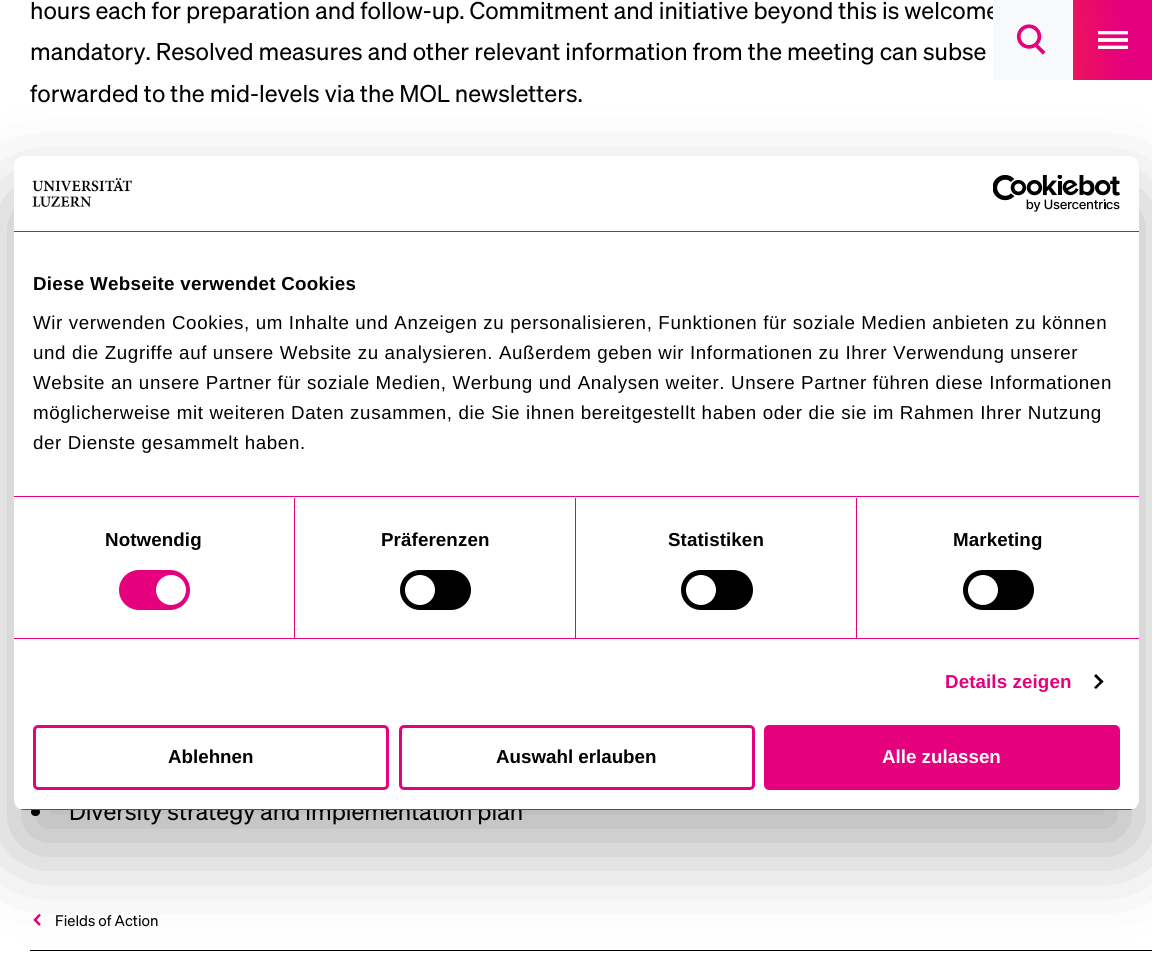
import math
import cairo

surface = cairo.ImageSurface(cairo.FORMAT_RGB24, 1152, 963)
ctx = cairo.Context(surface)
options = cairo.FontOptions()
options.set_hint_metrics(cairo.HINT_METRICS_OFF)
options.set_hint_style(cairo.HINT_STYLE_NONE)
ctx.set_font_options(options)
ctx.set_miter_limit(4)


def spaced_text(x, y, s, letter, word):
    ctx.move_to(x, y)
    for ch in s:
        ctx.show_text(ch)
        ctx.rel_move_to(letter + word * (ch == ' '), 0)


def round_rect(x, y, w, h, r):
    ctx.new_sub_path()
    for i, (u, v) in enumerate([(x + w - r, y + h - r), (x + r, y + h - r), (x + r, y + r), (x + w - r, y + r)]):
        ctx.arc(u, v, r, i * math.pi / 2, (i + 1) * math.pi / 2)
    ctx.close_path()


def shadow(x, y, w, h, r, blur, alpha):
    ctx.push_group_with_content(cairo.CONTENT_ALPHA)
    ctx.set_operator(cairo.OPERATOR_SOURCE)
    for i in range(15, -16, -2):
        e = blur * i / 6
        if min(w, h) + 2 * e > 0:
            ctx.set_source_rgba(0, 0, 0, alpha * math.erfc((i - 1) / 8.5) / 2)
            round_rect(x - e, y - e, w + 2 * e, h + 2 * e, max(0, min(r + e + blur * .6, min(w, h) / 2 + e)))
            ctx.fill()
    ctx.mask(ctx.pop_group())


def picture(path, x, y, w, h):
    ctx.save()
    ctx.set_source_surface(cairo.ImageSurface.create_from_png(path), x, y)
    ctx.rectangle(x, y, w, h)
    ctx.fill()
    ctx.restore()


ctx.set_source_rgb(1, 1, 1)
ctx.paint()
ctx.select_font_face("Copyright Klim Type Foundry")
ctx.set_font_size(23.75)
ctx.set_source_rgb(0, 0, 0)
ctx.move_to(30, 19)
ctx.show_text("hours each for preparation and follow-up. Commitment and initiative beyond this is welcome")
ctx.move_to(30, 60)
ctx.show_text("mandatory. Resolved measures and other relevant information from the meeting can subse")
ctx.move_to(30, 102)
ctx.show_text("forwarded to the mid-levels via the MOL newsletters.")
round_rect(31, 808, 9, 8, 4)
ctx.fill()
ctx.move_to(69, 820)
ctx.show_text("Diversity strategy and implementation plan")
ctx.new_path()
ctx.move_to(40, 914.5)
ctx.line_to(35, 920)
ctx.line_to(40, 925)
ctx.set_source_rgb(0.898, 0, 0.49)
ctx.set_line_width(2.5)
ctx.stroke()
ctx.set_font_size(15)
ctx.set_source_rgb(0, 0, 0)
ctx.move_to(55, 926)
ctx.show_text("Fields of Action")
ctx.rectangle(30, 950, 1122, 1)
ctx.fill()
ctx.set_source_rgb(0.969, 0.973, 0.98)
ctx.rectangle(993, 0, 80, 80)
ctx.fill()
picture("img1.png", 1016, 24, 30, 31)
gradient = cairo.LinearGradient(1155, 37, 1070, 43)
gradient.add_color_stop_rgba(0.37, 0.898, 0, 0.49, 1)
gradient.add_color_stop_rgba(1, 0.929, 0.078, 0.357, 1)
ctx.set_source(gradient)
ctx.rectangle(1073, 0, 79, 79)
ctx.fill()
picture("img2.png", 1098, 31, 30, 18)
gradient = cairo.LinearGradient(1152, 76, 1073, 82)
gradient.add_color_stop_rgba(0.37, 0.898, 0, 0.49, 1)
gradient.add_color_stop_rgba(1, 0.929, 0.078, 0.357, 1)
ctx.set_source(gradient)
ctx.rectangle(1073, 79, 79, 1)
ctx.fill()
ctx.set_source_rgb(0, 0, 0)
shadow(14, 196, 1125, 654, 10, 42.5, 0.3)
ctx.set_source_rgb(1, 1, 1)
round_rect(14, 156, 1125, 654, 10)
ctx.fill()
ctx.set_source_rgb(0.898, 0, 0.49)
ctx.rectangle(14, 231, 1125, 1)
ctx.fill()
picture("img3.png", 32, 178, 100, 29)
picture("img4.png", 993, 175, 127, 37)
ctx.rectangle(14, 496, 1125, 1)
ctx.fill()
ctx.select_font_face("Liberation Sans", cairo.FONT_SLANT_NORMAL, cairo.FONT_WEIGHT_BOLD)
ctx.set_font_size(18.75)
ctx.set_source_rgb(0, 0, 0)
spaced_text(33, 290, "Diese Webseite verwendet Cookies", 0.3, 0)
ctx.select_font_face("Liberation Sans")
spaced_text(33, 329, "Wir verwenden Cookies, um Inhalte und Anzeigen zu personalisieren, Funktionen für soziale Medien anbieten zu können", 0.62, 0)
spaced_text(33, 359, "und die Zugriffe auf unsere Website zu analysieren. Außerdem geben wir Informationen zu Ihrer Verwendung unserer", 0.62, 0)
spaced_text(33, 389, "Website an unsere Partner für soziale Medien, Werbung und Analysen weiter. Unsere Partner führen diese Informationen", 0.62, 0)
spaced_text(33, 419, "möglicherweise mit weiteren Daten zusammen, die Sie ihnen bereitgestellt haben oder die sie im Rahmen Ihrer Nutzung", 0.62, 0)
spaced_text(33, 449, "der Dienste gesammelt haben.", 0.62, 0)
ctx.set_source_rgb(0.898, 0, 0.49)
ctx.rectangle(14, 638, 1125, 1)
ctx.fill()
ctx.rectangle(294, 498, 1, 140)
ctx.fill()
ctx.select_font_face("Liberation Sans", cairo.FONT_SLANT_NORMAL, cairo.FONT_WEIGHT_BOLD)
ctx.set_source_rgb(0, 0, 0)
spaced_text(105, 546, "Notwendig", 0.1, 0)
ctx.set_source_rgb(0.898, 0, 0.49)
round_rect(119, 570, 71, 40, 20)
ctx.fill()
ctx.set_source_rgb(1, 1, 1)
ctx.arc(171, 590, 15, 0, 2 * math.pi)
ctx.fill()
ctx.set_source_rgb(0.898, 0, 0.49)
ctx.rectangle(575, 498, 1, 140)
ctx.fill()
ctx.set_source_rgb(0, 0, 0)
spaced_text(381, 546, "Präferenzen", 0.1, 0)
round_rect(400, 570, 71, 40, 20)
ctx.fill()
ctx.set_source_rgb(1, 1, 1)
ctx.arc(420, 590, 15, 0, 2 * math.pi)
ctx.fill()
ctx.set_source_rgb(0.898, 0, 0.49)
ctx.rectangle(856, 498, 1, 140)
ctx.fill()
ctx.set_source_rgb(0, 0, 0)
spaced_text(668, 546, "Statistiken", 0.1, 0)
round_rect(681, 570, 72, 40, 20)
ctx.fill()
ctx.set_source_rgb(1, 1, 1)
ctx.arc(701, 590, 15, 0, 2 * math.pi)
ctx.fill()
ctx.set_source_rgb(0, 0, 0)
spaced_text(953, 546, "Marketing", 0.1, 0)
round_rect(963, 570, 71, 40, 20)
ctx.fill()
ctx.set_source_rgb(1, 1, 1)
ctx.arc(983, 590, 15, 0, 2 * math.pi)
ctx.fill()
ctx.set_source_rgb(0.898, 0, 0.49)
spaced_text(945, 688, "Details zeigen", 0.1, 0)
ctx.set_source_rgb(0, 0, 0)
ctx.new_path()
ctx.move_to(1096, 674)
ctx.line_to(1103.5, 681.5)
ctx.line_to(1101.5, 683.5)
ctx.line_to(1094, 676)
ctx.close_path()
ctx.fill()
ctx.new_path()
ctx.move_to(1101.5, 680)
ctx.line_to(1103.5, 681.5)
ctx.line_to(1096, 689)
ctx.line_to(1094, 687.5)
ctx.close_path()
ctx.fill()
ctx.save()
round_rect(14, 156, 1125, 654, 10)
ctx.clip()
ctx.set_source_rgb(0.898, 0, 0.49)
ctx.rectangle(14, 809, 1125, 1)
ctx.fill()
ctx.restore()
round_rect(34.5, 726.5, 353, 62, 3.5)
ctx.set_source_rgb(0.898, 0, 0.49)
ctx.set_line_width(3)
ctx.stroke()
ctx.set_source_rgb(0, 0, 0)
ctx.move_to(168, 763)
ctx.show_text("Ablehnen")
round_rect(400.5, 726.5, 353, 62, 3.5)
ctx.set_source_rgb(0.898, 0, 0.49)
ctx.stroke()
ctx.set_source_rgb(0, 0, 0)
ctx.move_to(496, 763)
ctx.show_text("Auswahl erlauben")
ctx.set_source_rgb(0.898, 0, 0.49)
round_rect(765.5, 726.5, 353, 62, 3.5)
ctx.fill_preserve()
ctx.stroke()
ctx.set_source_rgb(1, 1, 1)
ctx.move_to(882, 763)
ctx.show_text("Alle zulassen")
surface.write_to_png("page.png")
